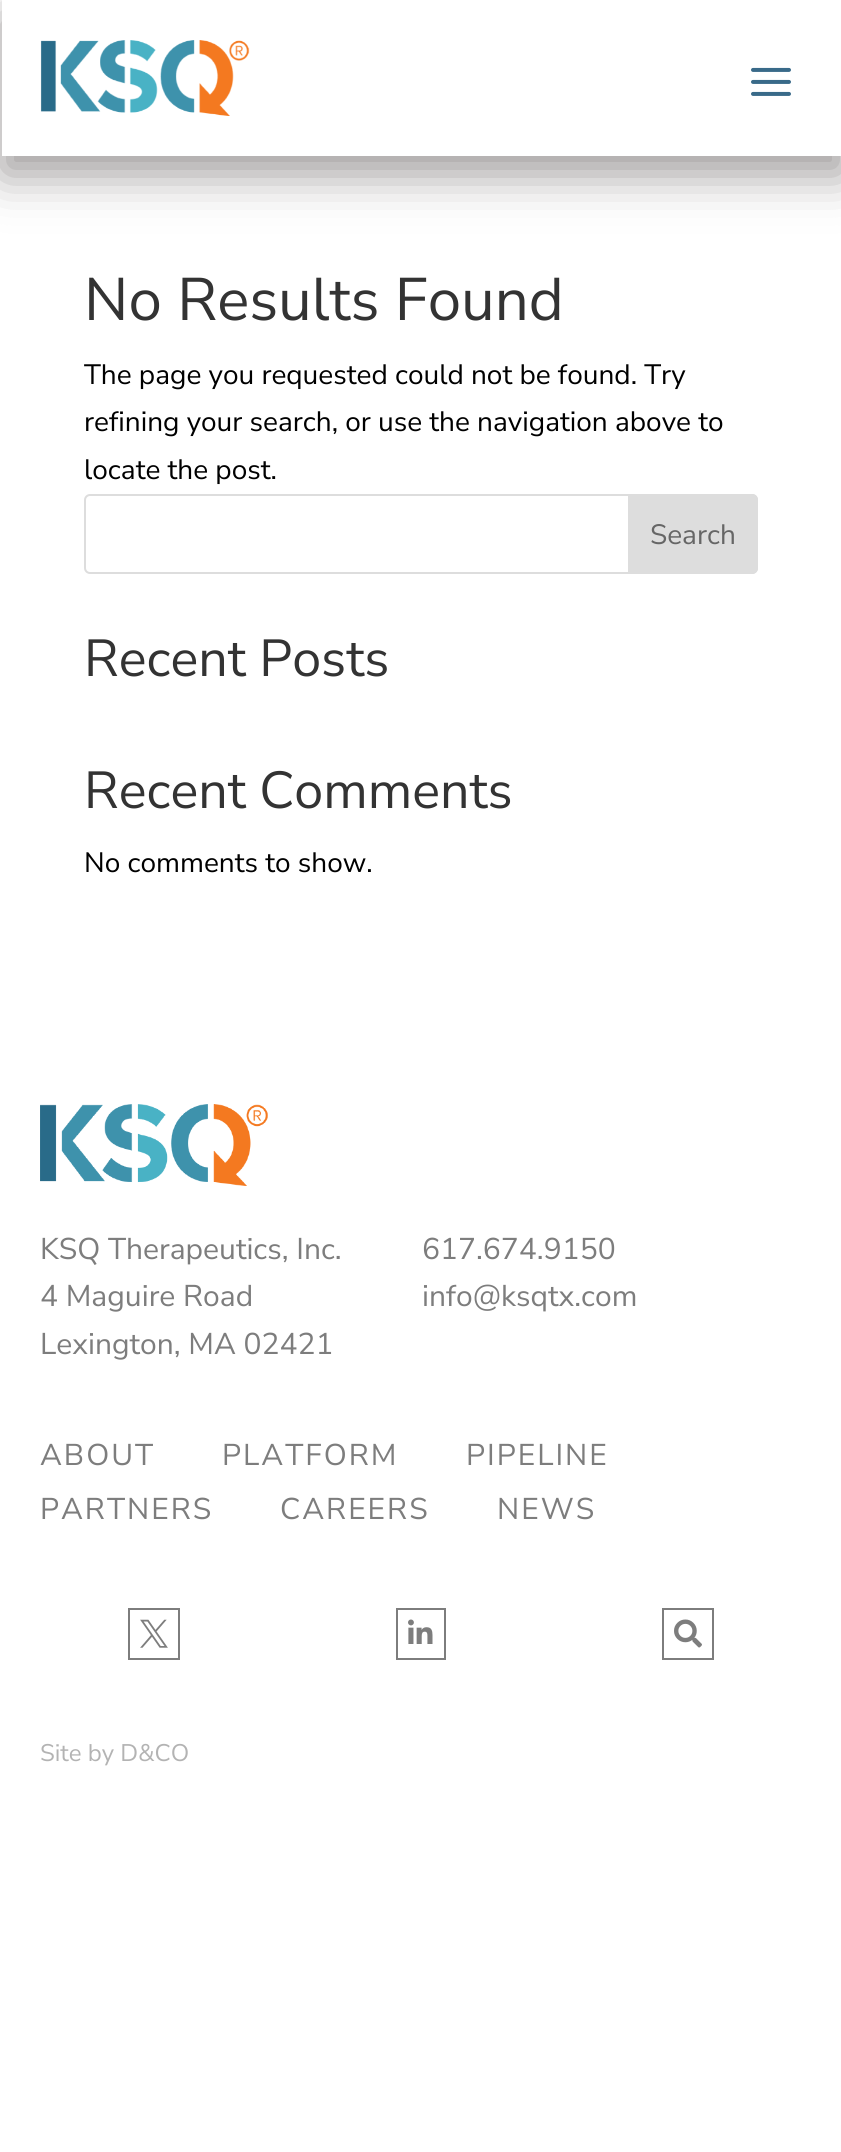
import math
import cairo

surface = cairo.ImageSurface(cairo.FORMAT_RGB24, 841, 2152)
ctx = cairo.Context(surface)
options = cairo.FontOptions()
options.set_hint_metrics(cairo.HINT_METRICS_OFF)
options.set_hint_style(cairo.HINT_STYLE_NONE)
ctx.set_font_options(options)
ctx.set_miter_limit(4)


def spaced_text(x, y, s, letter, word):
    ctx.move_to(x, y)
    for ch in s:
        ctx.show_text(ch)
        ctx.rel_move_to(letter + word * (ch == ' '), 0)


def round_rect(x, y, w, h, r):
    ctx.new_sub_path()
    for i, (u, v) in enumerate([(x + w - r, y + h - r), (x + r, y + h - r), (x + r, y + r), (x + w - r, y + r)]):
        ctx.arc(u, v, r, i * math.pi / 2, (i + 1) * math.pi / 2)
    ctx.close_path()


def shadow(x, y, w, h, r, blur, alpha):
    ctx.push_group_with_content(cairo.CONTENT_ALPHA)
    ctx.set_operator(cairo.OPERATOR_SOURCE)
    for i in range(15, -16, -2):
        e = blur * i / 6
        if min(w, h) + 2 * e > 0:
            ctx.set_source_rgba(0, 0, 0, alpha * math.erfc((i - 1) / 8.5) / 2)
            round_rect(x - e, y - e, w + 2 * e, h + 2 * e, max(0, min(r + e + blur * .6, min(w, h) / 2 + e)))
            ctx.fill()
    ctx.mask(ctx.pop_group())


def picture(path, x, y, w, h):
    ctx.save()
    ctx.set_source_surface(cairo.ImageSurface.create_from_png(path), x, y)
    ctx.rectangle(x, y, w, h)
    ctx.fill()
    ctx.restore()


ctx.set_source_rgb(1, 1, 1)
ctx.paint()
ctx.save()
ctx.set_fill_rule(cairo.FILL_RULE_EVEN_ODD)
ctx.new_path()
ctx.move_to(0, 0)
ctx.line_to(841, 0)
ctx.line_to(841, 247)
ctx.line_to(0, 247)
ctx.close_path()
ctx.move_to(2, 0)
ctx.line_to(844, 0)
ctx.line_to(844, 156)
ctx.line_to(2, 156)
ctx.close_path()
ctx.clip()
ctx.set_source_rgb(0.039, 0, 0)
shadow(2, 18, 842, 156, 0, 24, 0.4)
ctx.restore()
picture("img1.png", 40, 40, 210, 76)
picture("img2.png", 751, 67, 40, 29)
ctx.select_font_face("Nunito Sans")
ctx.set_font_size(60)
ctx.set_source_rgb(0.2, 0.2, 0.2)
ctx.move_to(84, 320)
ctx.show_text("No Results Found")
ctx.set_font_size(28)
ctx.set_source_rgb(0, 0, 0)
ctx.move_to(84, 384)
ctx.show_text("The page you requested could not be found. Try")
ctx.move_to(84, 431)
ctx.show_text("refining your search, or use the navigation above to")
ctx.move_to(84, 479)
ctx.show_text("locate the post.")
round_rect(85, 495, 672, 78, 5)
ctx.set_source_rgb(0.867, 0.867, 0.867)
ctx.stroke()
ctx.new_path()
ctx.move_to(629, 495)
ctx.line_to(752, 495)
ctx.curve_to(755, 495, 757, 497, 757, 500)
ctx.line_to(757, 568)
ctx.curve_to(757, 571, 755, 573, 752, 573)
ctx.line_to(629, 573)
ctx.close_path()
ctx.fill_preserve()
ctx.stroke()
ctx.set_source_rgb(0.4, 0.4, 0.4)
ctx.move_to(650, 544)
ctx.show_text("Search")
ctx.set_font_size(52)
ctx.set_source_rgb(0.2, 0.2, 0.2)
ctx.move_to(84, 676)
ctx.show_text("Recent Posts")
ctx.move_to(84, 808)
ctx.show_text("Recent Comments")
ctx.set_font_size(28)
ctx.set_source_rgb(0, 0, 0)
ctx.move_to(84, 872)
ctx.show_text("No comments to show.")
picture("img3.png", 40, 1104, 228, 82)
ctx.set_font_size(30)
ctx.set_source_rgb(0.49, 0.49, 0.49)
ctx.move_to(40, 1259)
ctx.show_text("KSQ Therapeutics, Inc.")
ctx.move_to(40, 1306)
ctx.show_text("4 Maguire Road")
ctx.move_to(40, 1354)
ctx.show_text("Lexington, MA 02421")
ctx.move_to(422, 1259)
ctx.show_text("617.674.9150")
ctx.move_to(422, 1306)
ctx.show_text("info@ksqtx.com")
spaced_text(40, 1465, "ABOUT", 2, 0)
spaced_text(222, 1465, "PLATFORM", 2, 0)
spaced_text(466, 1465, "PIPELINE", 2, 0)
spaced_text(40, 1519, "PARTNERS", 2, 0)
spaced_text(280, 1519, "CAREERS", 2, 0)
spaced_text(497, 1519, "NEWS", 2, 0)
ctx.rectangle(129, 1609, 50, 50)
ctx.stroke()
picture("img4.png", 140, 1619, 28, 29)
ctx.rectangle(397, 1609, 48, 50)
ctx.stroke()
picture("img5.png", 408, 1619, 25, 25)
ctx.rectangle(663, 1609, 50, 50)
ctx.stroke()
picture("img6.png", 674, 1619, 28, 29)
ctx.set_font_size(24)
ctx.set_source_rgb(0.702, 0.702, 0.702)
ctx.move_to(40, 1761)
ctx.show_text("Site by D&CO")
surface.write_to_png("page.png")
